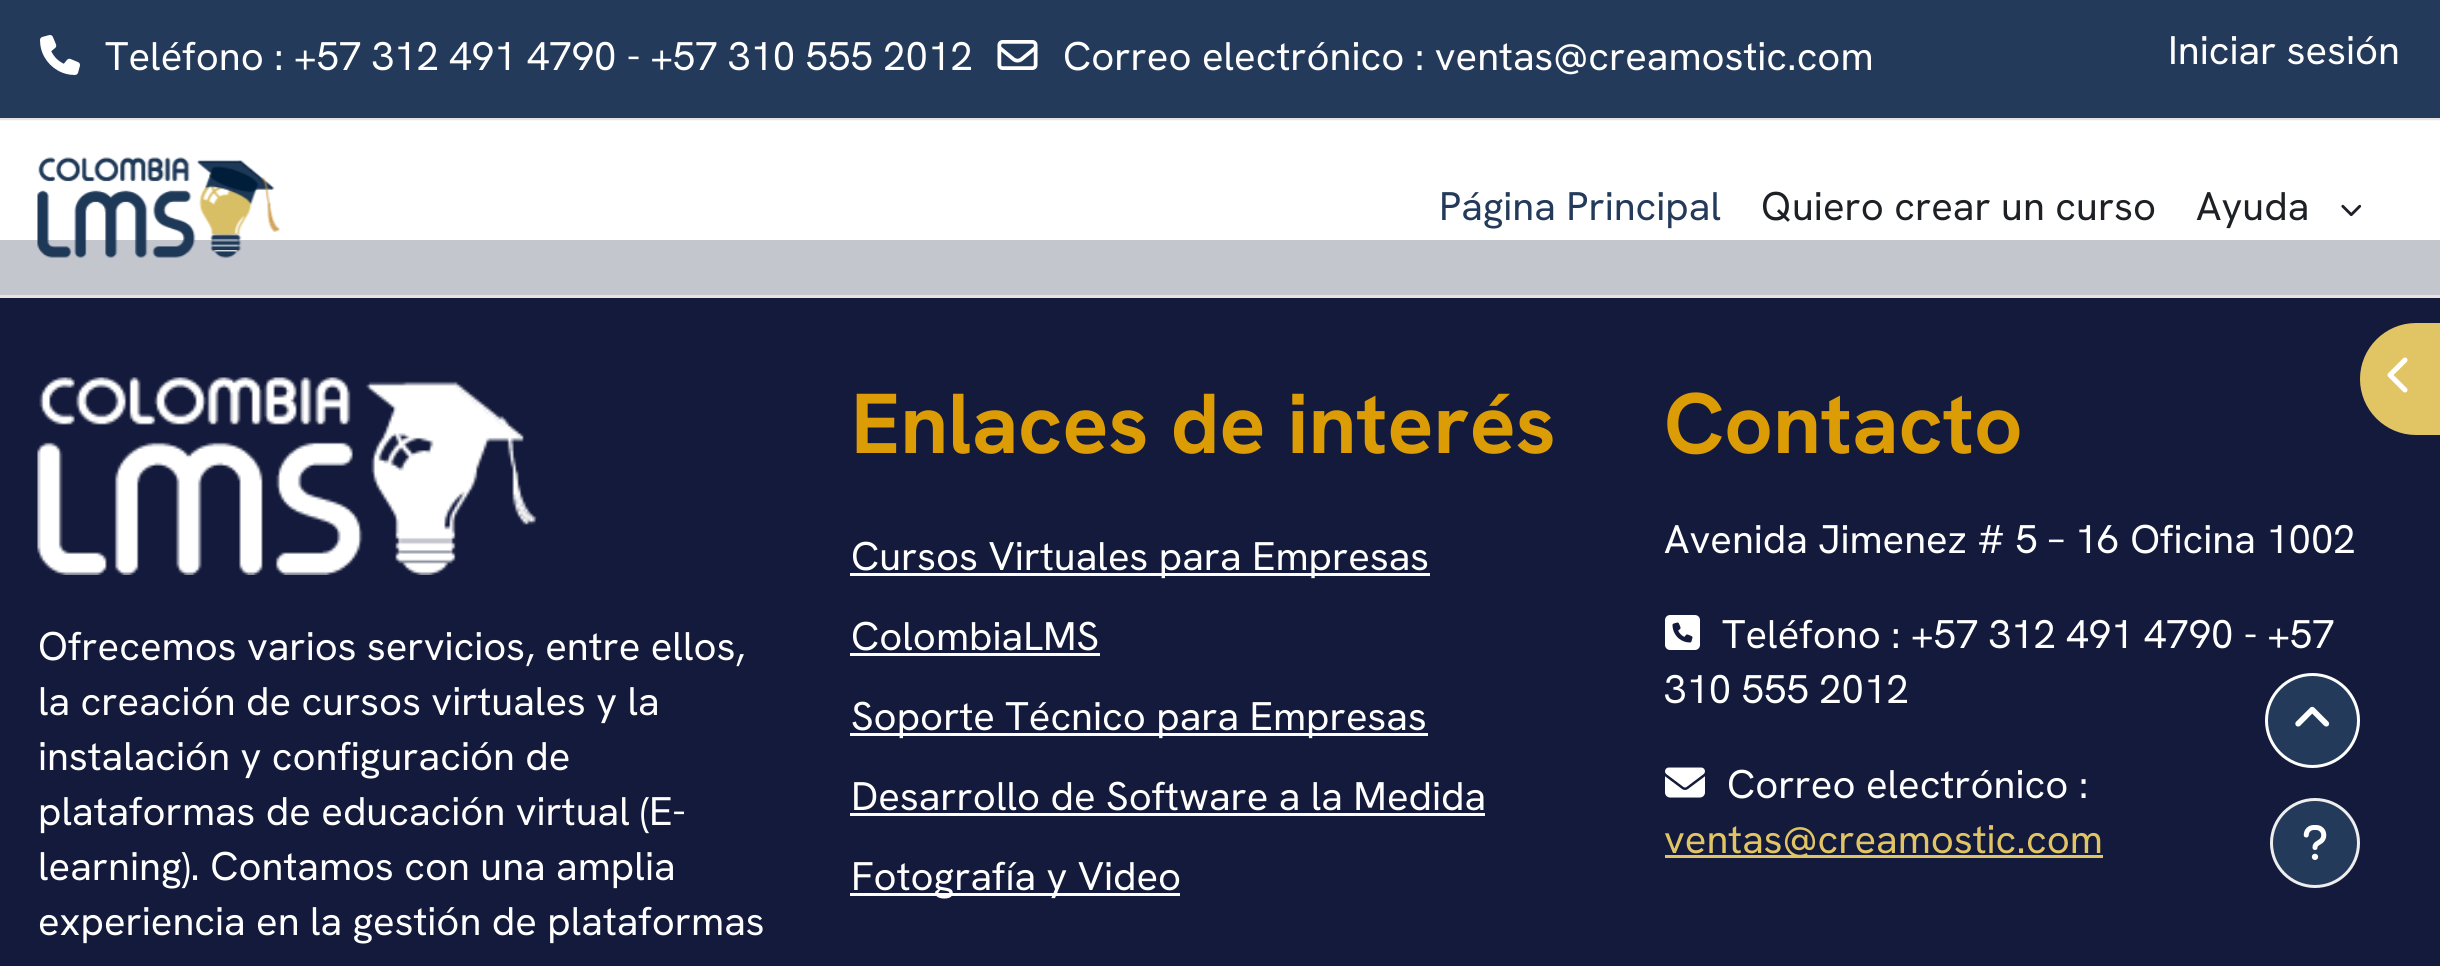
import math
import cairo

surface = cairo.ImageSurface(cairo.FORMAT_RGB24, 2440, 966)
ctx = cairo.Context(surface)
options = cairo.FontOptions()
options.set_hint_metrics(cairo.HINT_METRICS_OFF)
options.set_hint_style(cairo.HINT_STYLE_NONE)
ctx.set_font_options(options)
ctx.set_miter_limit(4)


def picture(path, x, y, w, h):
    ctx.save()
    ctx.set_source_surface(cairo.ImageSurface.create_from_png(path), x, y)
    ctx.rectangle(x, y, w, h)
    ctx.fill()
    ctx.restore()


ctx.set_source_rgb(1, 1, 1)
ctx.paint()
ctx.set_source_rgb(0.141, 0.227, 0.357)
ctx.rectangle(0, 0, 2440, 118)
ctx.fill()
ctx.set_source_rgb(0.91, 0.89, 0.89)
ctx.rectangle(0, 118, 2440, 2)
ctx.fill()
ctx.set_source_rgb(0.976, 0.973, 0.973)
ctx.rectangle(0, 120, 2440, 1)
ctx.fill()
picture("img1.png", 40, 35, 40, 40)
ctx.select_font_face("Hanken Grotesk")
ctx.set_font_size(40)
ctx.set_source_rgb(1, 1, 1)
ctx.move_to(105, 70)
ctx.show_text("Teléfono : +57 312 491 4790 - +57 310 555 2012")
picture("img2.png", 997, 40, 41, 30)
ctx.move_to(1063, 70)
ctx.show_text("Correo electrónico : ventas@creamostic.com")
ctx.move_to(2168, 64)
ctx.show_text("Iniciar sesión")
ctx.set_source_rgb(0.91, 0.89, 0.89)
ctx.rectangle(0, 295, 2440, 3)
ctx.fill()
ctx.set_source_rgb(0.769, 0.776, 0.808)
ctx.rectangle(0, 240, 2440, 55)
ctx.fill()
picture("img3.png", 37, 157, 243, 101)
ctx.set_source_rgb(0.141, 0.227, 0.357)
ctx.move_to(1439, 220)
ctx.show_text("Página Principal")
ctx.set_source_rgb(0.114, 0.129, 0.145)
ctx.move_to(1761, 220)
ctx.show_text("Quiero crear un curso")
ctx.move_to(2196, 220)
ctx.show_text("Ayuda")
picture("img4.png", 2341, 204, 21, 13)
ctx.set_source_rgb(0.078, 0.102, 0.231)
ctx.rectangle(0, 298, 2440, 668)
ctx.fill()
ctx.set_source_rgb(0.882, 0.773, 0.392)
ctx.new_path()
ctx.move_to(2416, 324.5)
ctx.line_to(2438.5, 324.5)
ctx.line_to(2438.5, 433.5)
ctx.line_to(2416, 433.5)
ctx.curve_to(2386, 433.5, 2361.5, 409, 2361.5, 379)
ctx.curve_to(2361.5, 349, 2386, 324.5, 2416, 324.5)
ctx.close_path()
ctx.fill_preserve()
ctx.set_line_width(3)
ctx.stroke()
picture("img5.png", 2387, 357, 21, 36)
picture("img6.png", 37, 377, 501, 198)
ctx.set_source_rgb(1, 1, 1)
ctx.move_to(38, 660)
ctx.show_text("Ofrecemos varios servicios, entre ellos,")
ctx.move_to(38, 715)
ctx.show_text("la creación de cursos virtuales y la")
ctx.move_to(38, 770)
ctx.show_text("instalación y configuración de")
ctx.move_to(38, 825)
ctx.show_text("plataformas de educación virtual (E-")
ctx.move_to(38, 880)
ctx.show_text("learning). Contamos con una amplia")
ctx.move_to(38, 935)
ctx.show_text("experiencia en la gestión de plataformas")
ctx.select_font_face("Hanken Grotesk", cairo.FONT_SLANT_NORMAL, cairo.FONT_WEIGHT_BOLD)
ctx.set_font_size(85)
ctx.set_source_rgb(0.863, 0.612, 0.024)
ctx.move_to(851, 453)
ctx.show_text("Enlaces de interés")
ctx.set_source_rgb(1, 1, 1)
ctx.rectangle(850, 573, 580, 3)
ctx.fill()
ctx.select_font_face("Hanken Grotesk")
ctx.set_font_size(40)
ctx.move_to(851, 570)
ctx.show_text("Cursos Virtuales para Empresas")
ctx.move_to(851, 650)
ctx.show_text("ColombiaLMS")
ctx.rectangle(850, 653, 250, 3)
ctx.fill()
ctx.rectangle(850, 733, 578, 3)
ctx.fill()
ctx.move_to(851, 730)
ctx.show_text("Soporte Técnico para Empresas")
ctx.move_to(851, 810)
ctx.show_text("Desarrollo de Software a la Medida")
ctx.rectangle(850, 813, 635, 3)
ctx.fill()
ctx.rectangle(850, 893, 330, 3)
ctx.fill()
ctx.move_to(851, 890)
ctx.show_text("Fotografía y Video")
ctx.select_font_face("Hanken Grotesk", cairo.FONT_SLANT_NORMAL, cairo.FONT_WEIGHT_BOLD)
ctx.set_font_size(85)
ctx.set_source_rgb(0.863, 0.612, 0.024)
ctx.move_to(1664, 453)
ctx.show_text("Contacto")
ctx.select_font_face("Hanken Grotesk")
ctx.set_font_size(40)
ctx.set_source_rgb(1, 1, 1)
ctx.move_to(1664, 553)
ctx.show_text("Avenida Jimenez # 5 – 16 Oficina 1002")
picture("img7.png", 1665, 615, 35, 35)
ctx.move_to(1722, 648)
ctx.show_text("Teléfono : +57 312 491 4790 - +57")
ctx.move_to(1664, 703)
ctx.show_text("310 555 2012")
picture("img8.png", 1665, 767, 40, 31)
ctx.move_to(1727, 798)
ctx.show_text("Correo electrónico :")
ctx.set_source_rgb(0.882, 0.773, 0.392)
ctx.rectangle(1665, 855, 438, 3)
ctx.fill()
ctx.move_to(1664, 853)
ctx.show_text("ventas@creamostic.com")
ctx.set_source_rgb(0.141, 0.227, 0.357)
ctx.new_path()
ctx.arc(2315, 843, 43.5, 0, 2 * math.pi)
ctx.fill_preserve()
ctx.set_source_rgb(0.933, 0.933, 0.933)
ctx.stroke()
picture("img9.png", 2303, 825, 24, 35)
ctx.set_source_rgb(0.141, 0.227, 0.357)
ctx.arc(2312.5, 720.5, 46, 0, 2 * math.pi)
ctx.fill_preserve()
ctx.set_source_rgb(1, 1, 1)
ctx.stroke()
picture("img10.png", 2295, 706, 35, 21)
surface.write_to_png("page.png")
